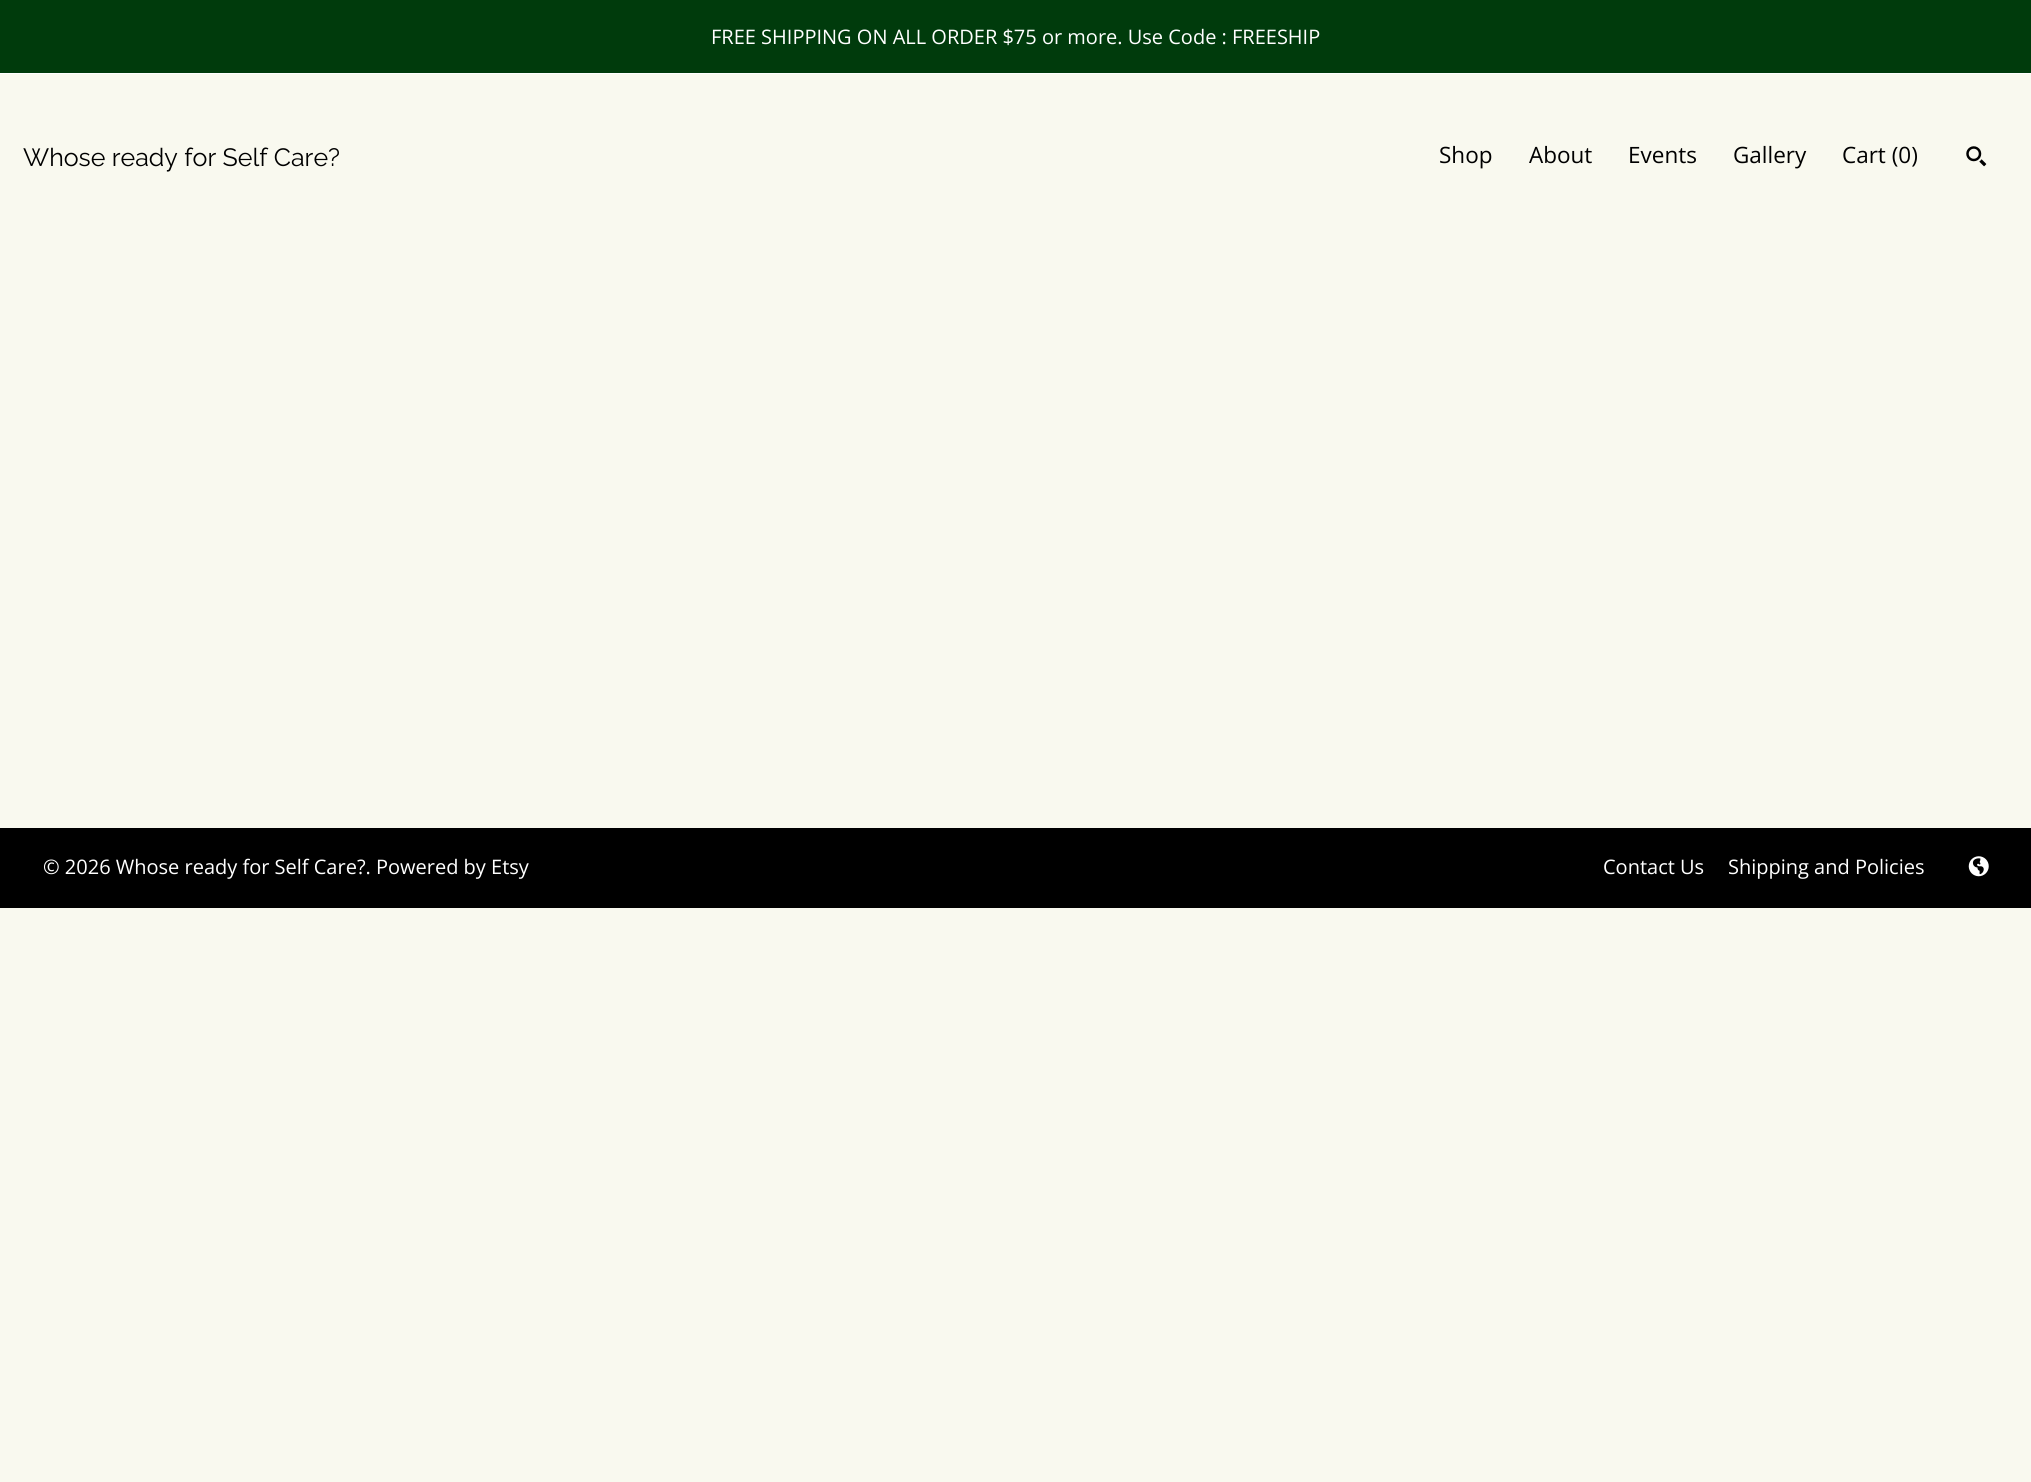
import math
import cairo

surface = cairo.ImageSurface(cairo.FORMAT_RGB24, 2031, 1482)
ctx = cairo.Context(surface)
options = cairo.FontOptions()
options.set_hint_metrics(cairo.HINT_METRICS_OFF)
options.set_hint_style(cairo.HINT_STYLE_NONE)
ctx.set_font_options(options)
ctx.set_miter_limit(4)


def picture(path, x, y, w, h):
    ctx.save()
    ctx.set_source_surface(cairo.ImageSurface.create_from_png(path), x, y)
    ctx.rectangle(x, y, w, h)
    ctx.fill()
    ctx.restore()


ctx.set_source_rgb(0.976, 0.976, 0.937)
ctx.paint()
ctx.set_source_rgb(0, 0.231, 0.047)
ctx.rectangle(0, 0, 2031, 73)
ctx.fill()
ctx.set_source_rgb(1, 1, 1)
ctx.rectangle(0, 73, 2031, 1)
ctx.fill()
ctx.select_font_face("Open Sans")
ctx.set_font_size(20)
ctx.move_to(711, 44)
ctx.show_text("FREE SHIPPING ON ALL ORDER $75 or more. Use Code : FREESHIP")
ctx.select_font_face("Raleway")
ctx.set_font_size(25)
ctx.set_source_rgb(0, 0, 0)
ctx.move_to(23, 166)
ctx.show_text("Whose ready for Self Care?")
ctx.select_font_face("Open Sans")
ctx.set_font_size(22.5)
ctx.move_to(1439, 163)
ctx.show_text("Shop")
ctx.move_to(1529, 163)
ctx.show_text("About")
ctx.move_to(1628, 163)
ctx.show_text("Events")
ctx.move_to(1733, 163)
ctx.show_text("Gallery")
ctx.move_to(1842, 163)
ctx.show_text("Cart (0)")
picture("img1.png", 1966, 146, 21, 21)
ctx.rectangle(0, 828, 2031, 80)
ctx.fill()
ctx.set_font_size(20)
ctx.set_source_rgb(1, 1, 1)
ctx.move_to(43, 874)
ctx.show_text("© 2026 Whose ready for Self Care?. Powered by Etsy")
ctx.move_to(1603, 874)
ctx.show_text("Contact Us")
ctx.move_to(1728, 874)
ctx.show_text("Shipping and Policies")
picture("img2.png", 1968, 856, 21, 21)
surface.write_to_png("page.png")
